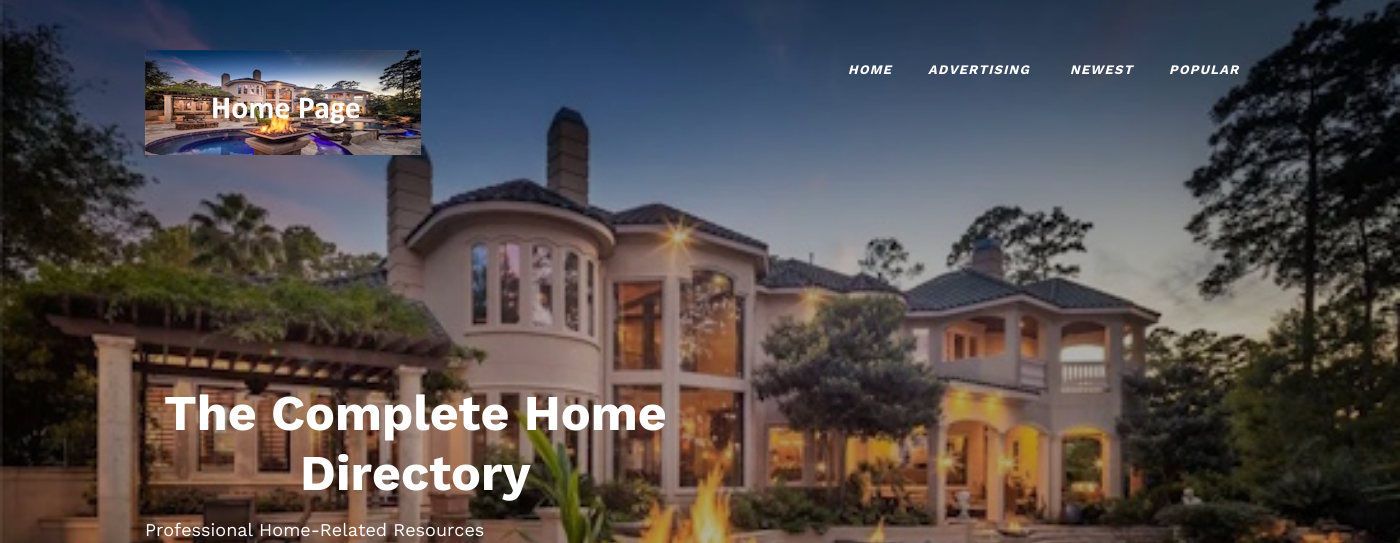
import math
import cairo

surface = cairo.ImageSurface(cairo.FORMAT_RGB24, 1400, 543)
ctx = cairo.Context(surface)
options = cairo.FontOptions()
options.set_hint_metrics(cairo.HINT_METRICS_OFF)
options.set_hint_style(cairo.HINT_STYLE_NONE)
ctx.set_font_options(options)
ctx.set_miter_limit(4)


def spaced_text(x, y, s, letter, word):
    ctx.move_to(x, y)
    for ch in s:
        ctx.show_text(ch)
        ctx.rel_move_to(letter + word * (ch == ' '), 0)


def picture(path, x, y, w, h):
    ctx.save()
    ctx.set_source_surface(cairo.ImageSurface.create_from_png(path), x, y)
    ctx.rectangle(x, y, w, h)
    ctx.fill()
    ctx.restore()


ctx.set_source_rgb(1, 1, 1)
ctx.paint()
picture("img2.png", 0, 0, 1400, 543)
picture("img1.png", 145, 50, 276, 105)
ctx.select_font_face("Work Sans", cairo.FONT_SLANT_ITALIC, cairo.FONT_WEIGHT_BOLD)
ctx.set_font_size(13)
ctx.set_source_rgb(1, 1, 1)
spaced_text(848, 74, "HOME", 1.25, 0)
spaced_text(928, 74, "ADVERTISING", 1.25, 0)
spaced_text(1070, 74, "NEWEST", 1.25, 0)
spaced_text(1169, 74, "POPULAR", 1.25, 0)
ctx.select_font_face("Work Sans", cairo.FONT_SLANT_NORMAL, cairo.FONT_WEIGHT_BOLD)
ctx.set_font_size(50)
ctx.move_to(164, 430)
ctx.show_text("The Complete Home")
ctx.move_to(300, 490)
ctx.show_text("Directory")
ctx.select_font_face("Work Sans")
ctx.set_font_size(18)
ctx.move_to(145, 536)
ctx.show_text("Professional Home-Related Resources")
surface.write_to_png("page.png")
